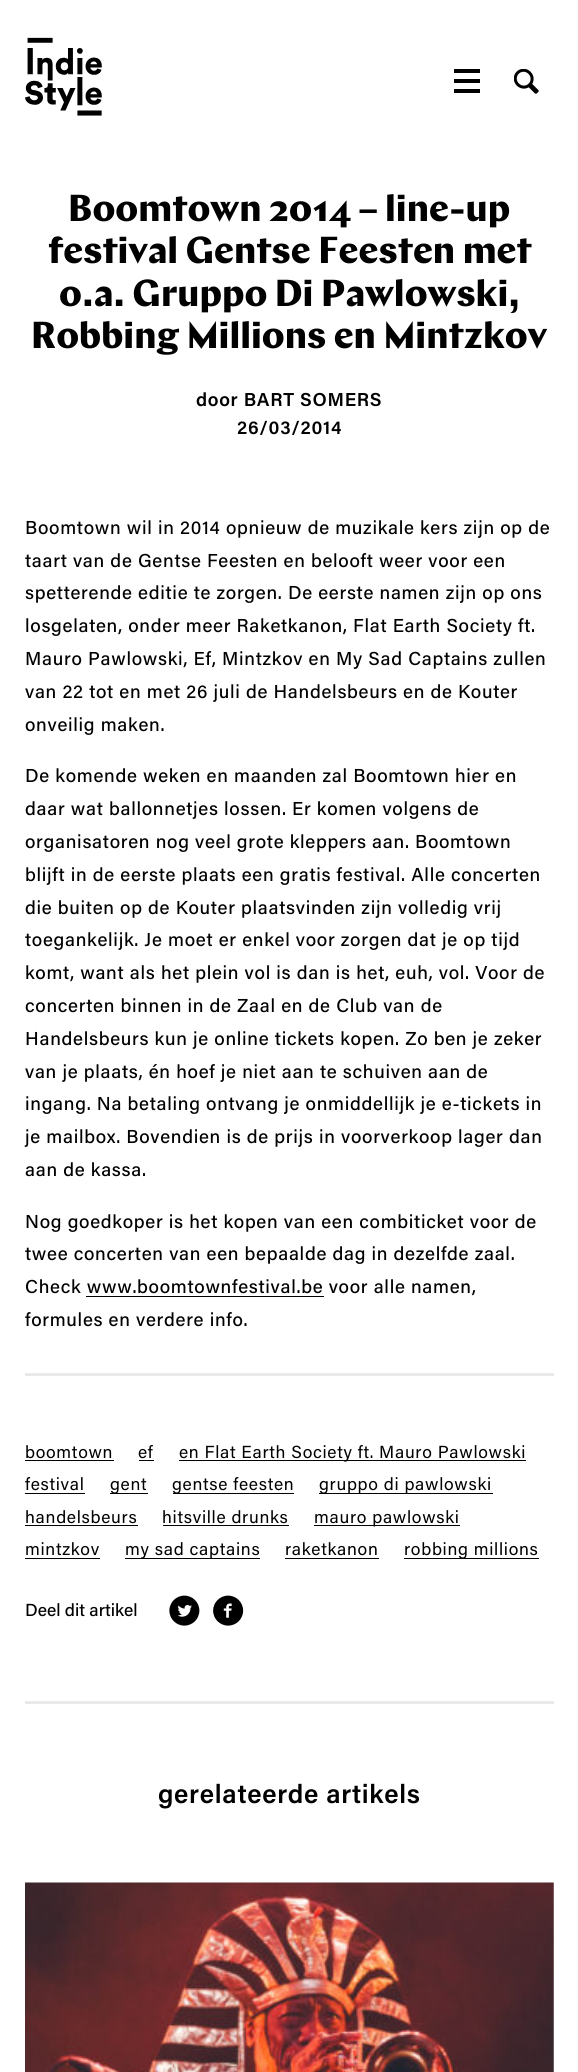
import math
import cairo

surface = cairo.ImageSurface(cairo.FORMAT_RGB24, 578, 2072)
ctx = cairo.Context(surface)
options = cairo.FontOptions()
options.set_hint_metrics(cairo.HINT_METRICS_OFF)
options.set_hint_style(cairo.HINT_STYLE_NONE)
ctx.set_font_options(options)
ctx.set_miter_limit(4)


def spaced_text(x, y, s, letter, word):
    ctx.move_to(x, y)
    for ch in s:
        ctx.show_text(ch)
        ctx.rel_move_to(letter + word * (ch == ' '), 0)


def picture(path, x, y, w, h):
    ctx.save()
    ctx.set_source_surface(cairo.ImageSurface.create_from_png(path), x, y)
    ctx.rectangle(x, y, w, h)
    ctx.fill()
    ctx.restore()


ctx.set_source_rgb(1, 1, 1)
ctx.paint()
picture("img1.png", 25, 37, 77, 79)
ctx.set_source_rgb(0, 0, 0)
ctx.rectangle(454, 79, 26, 4)
ctx.fill()
ctx.rectangle(454, 69, 26, 4)
ctx.fill()
ctx.rectangle(454, 89, 26, 4)
ctx.fill()
picture("img2.png", 514, 69, 25, 25)
ctx.select_font_face("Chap", cairo.FONT_SLANT_NORMAL, cairo.FONT_WEIGHT_BOLD)
ctx.set_font_size(37.5)
ctx.move_to(68, 221)
ctx.show_text("Boomtown 2014 – line-up")
ctx.move_to(48, 263)
ctx.show_text("festival Gentse Feesten met")
ctx.move_to(59, 306)
ctx.show_text("o.a. Gruppo Di Pawlowski,")
ctx.move_to(31, 348)
ctx.show_text("Robbing Millions en Mintzkov")
ctx.select_font_face("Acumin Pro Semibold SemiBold")
ctx.set_font_size(18.75)
spaced_text(196, 406, "door BART SOMERS", 0.7, 0)
spaced_text(237, 434, "26/03/2014", 0.7, 0)
ctx.select_font_face("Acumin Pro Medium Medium")
spaced_text(25, 534, "Boomtown wil in 2014 opnieuw de muzikale kers zijn op de", 0.7, 0)
spaced_text(25, 567, "taart van de Gentse Feesten en belooft weer voor een", 0.7, 0)
spaced_text(25, 599, "spetterende editie te zorgen. De eerste namen zijn op ons", 0.7, 0)
spaced_text(25, 632, "losgelaten, onder meer Raketkanon, Flat Earth Society ft.", 0.7, 0)
spaced_text(25, 665, "Mauro Pawlowski, Ef, Mintzkov en My Sad Captains zullen", 0.7, 0)
spaced_text(25, 698, "van 22 tot en met 26 juli de Handelsbeurs en de Kouter", 0.7, 0)
spaced_text(25, 731, "onveilig maken.", 0.7, 0)
spaced_text(25, 782, "De komende weken en maanden zal Boomtown hier en", 0.7, 0)
spaced_text(25, 815, "daar wat ballonnetjes lossen. Er komen volgens de", 0.7, 0)
spaced_text(25, 848, "organisatoren nog veel grote kleppers aan. Boomtown", 0.7, 0)
spaced_text(25, 881, "blijft in de eerste plaats een gratis festival. Alle concerten", 0.7, 0)
spaced_text(25, 914, "die buiten op de Kouter plaatsvinden zijn volledig vrij", 0.7, 0)
spaced_text(25, 946, "toegankelijk. Je moet er enkel voor zorgen dat je op tijd", 0.7, 0)
spaced_text(25, 979, "komt, want als het plein vol is dan is het, euh, vol. Voor de", 0.7, 0)
spaced_text(25, 1012, "concerten binnen in de Zaal en de Club van de", 0.7, 0)
spaced_text(25, 1045, "Handelsbeurs kun je online tickets kopen. Zo ben je zeker", 0.7, 0)
spaced_text(25, 1078, "van je plaats, én hoef je niet aan te schuiven aan de", 0.7, 0)
spaced_text(25, 1110, "ingang. Na betaling ontvang je onmiddellijk je e-tickets in", 0.7, 0)
spaced_text(25, 1143, "je mailbox. Bovendien is de prijs in voorverkoop lager dan", 0.7, 0)
spaced_text(25, 1176, "aan de kassa.", 0.7, 0)
spaced_text(25, 1228, "Nog goedkoper is het kopen van een combiticket voor de", 0.7, 0)
spaced_text(25, 1260, "twee concerten van een bepaalde dag in dezelfde zaal.", 0.7, 0)
spaced_text(25, 1293, "Check www.boomtownfestival.be voor alle namen,", 0.7, 0)
ctx.rectangle(86, 1296, 238, 1)
ctx.fill()
spaced_text(25, 1326, "formules en verdere info.", 0.7, 0)
ctx.set_source_rgb(0.914, 0.914, 0.914)
ctx.rectangle(25, 1373, 529, 3)
ctx.fill()
ctx.set_source_rgb(0, 0, 0)
ctx.rectangle(25, 1460, 89, 1)
ctx.fill()
ctx.select_font_face("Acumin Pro")
ctx.set_font_size(17.5)
spaced_text(25, 1458, "boomtown", 0.7, 0)
ctx.rectangle(139, 1460, 15, 1)
ctx.fill()
spaced_text(138, 1458, "ef", 0.7, 0)
ctx.rectangle(179, 1460, 347, 1)
ctx.fill()
spaced_text(179, 1458, "en Flat Earth Society ft. Mauro Pawlowski", 0.7, 0)
ctx.rectangle(25, 1493, 60, 1)
ctx.fill()
spaced_text(25, 1490, "festival", 0.7, 0)
ctx.rectangle(110, 1493, 38, 1)
ctx.fill()
spaced_text(110, 1490, "gent", 0.7, 0)
ctx.rectangle(173, 1493, 121, 1)
ctx.fill()
spaced_text(172, 1490, "gentse feesten", 0.7, 0)
ctx.rectangle(319, 1493, 174, 1)
ctx.fill()
spaced_text(319, 1490, "gruppo di pawlowski", 0.7, 0)
ctx.rectangle(25, 1525, 113, 1)
ctx.fill()
spaced_text(25, 1523, "handelsbeurs", 0.7, 0)
ctx.rectangle(163, 1525, 126, 1)
ctx.fill()
spaced_text(162, 1523, "hitsville drunks", 0.7, 0)
ctx.rectangle(314, 1525, 146, 1)
ctx.fill()
spaced_text(314, 1523, "mauro pawlowski", 0.7, 0)
ctx.rectangle(25, 1558, 75, 1)
ctx.fill()
spaced_text(25, 1555, "mintzkov", 0.7, 0)
ctx.rectangle(125, 1558, 135, 1)
ctx.fill()
spaced_text(125, 1555, "my sad captains", 0.7, 0)
ctx.rectangle(285, 1558, 94, 1)
ctx.fill()
spaced_text(285, 1555, "raketkanon", 0.7, 0)
ctx.rectangle(404, 1558, 135, 1)
ctx.fill()
spaced_text(404, 1555, "robbing millions", 0.7, 0)
ctx.select_font_face("Acumin Pro Medium Medium")
ctx.move_to(25, 1616)
ctx.show_text("Deel dit artikel")
picture("img3.png", 169, 1595, 31, 31)
picture("img4.png", 213, 1595, 31, 31)
ctx.set_source_rgb(0.914, 0.914, 0.914)
ctx.rectangle(25, 1701, 529, 3)
ctx.fill()
ctx.select_font_face("Acumin Pro Semibold SemiBold")
ctx.set_font_size(26.25)
ctx.set_source_rgb(0, 0, 0)
spaced_text(158, 1803, "gerelateerde artikels", 0.7, 0)
picture("img5.png", 25, 1882, 529, 190)
surface.write_to_png("page.png")
